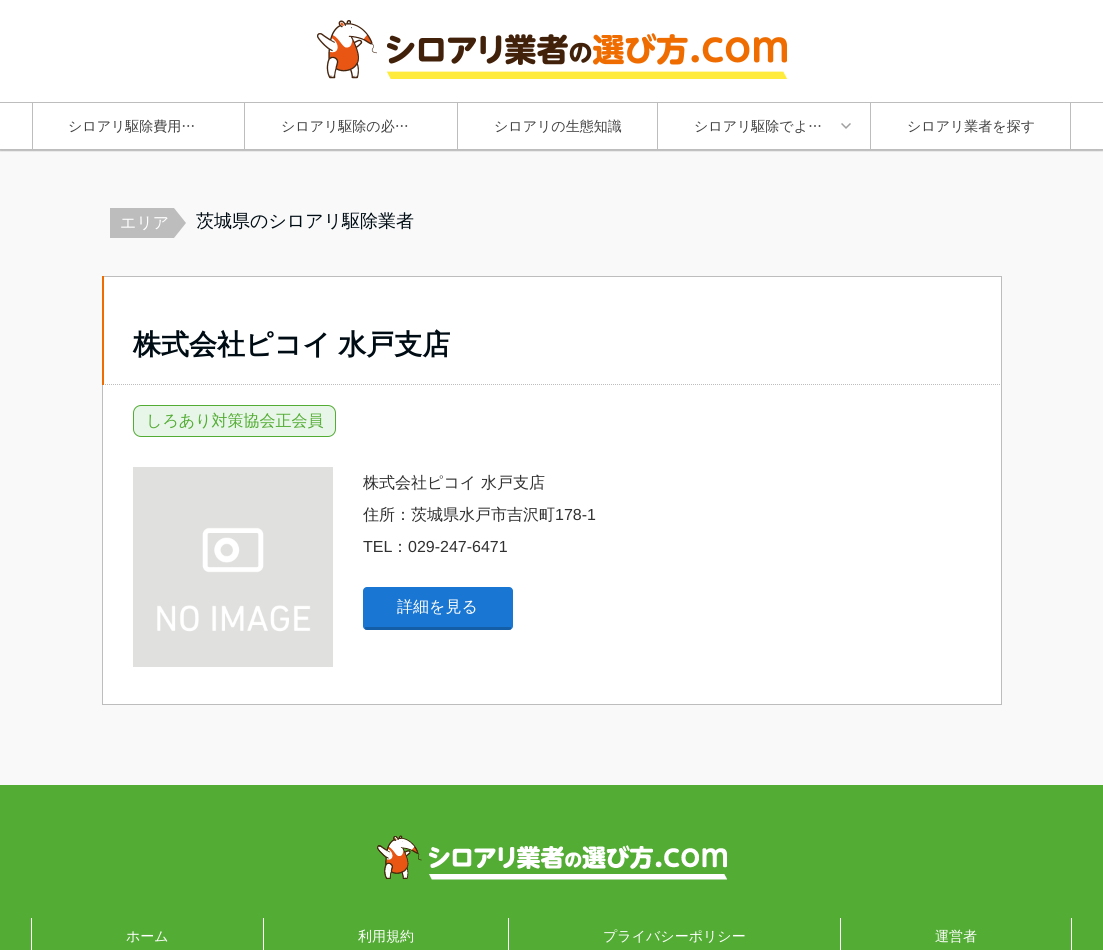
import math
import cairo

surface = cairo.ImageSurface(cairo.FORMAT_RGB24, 1103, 950)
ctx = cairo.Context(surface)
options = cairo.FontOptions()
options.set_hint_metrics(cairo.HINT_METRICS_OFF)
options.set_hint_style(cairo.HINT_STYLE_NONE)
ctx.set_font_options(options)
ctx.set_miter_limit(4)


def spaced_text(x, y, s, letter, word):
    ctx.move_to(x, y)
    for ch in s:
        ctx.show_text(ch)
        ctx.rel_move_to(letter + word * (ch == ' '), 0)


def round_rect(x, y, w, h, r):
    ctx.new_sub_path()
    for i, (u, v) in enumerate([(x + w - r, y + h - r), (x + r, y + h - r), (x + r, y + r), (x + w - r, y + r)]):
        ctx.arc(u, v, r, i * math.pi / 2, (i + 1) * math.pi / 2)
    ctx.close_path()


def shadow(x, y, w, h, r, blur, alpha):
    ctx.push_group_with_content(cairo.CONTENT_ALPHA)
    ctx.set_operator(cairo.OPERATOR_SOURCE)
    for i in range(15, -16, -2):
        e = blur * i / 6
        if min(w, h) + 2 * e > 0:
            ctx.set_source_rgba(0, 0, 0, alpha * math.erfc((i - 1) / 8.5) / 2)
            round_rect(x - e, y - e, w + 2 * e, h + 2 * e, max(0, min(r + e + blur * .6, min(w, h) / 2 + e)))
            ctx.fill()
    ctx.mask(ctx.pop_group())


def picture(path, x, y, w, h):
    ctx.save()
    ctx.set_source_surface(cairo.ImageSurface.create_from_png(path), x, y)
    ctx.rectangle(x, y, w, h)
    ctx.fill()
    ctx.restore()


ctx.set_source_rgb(0.973, 0.973, 0.973)
ctx.paint()
ctx.set_source_rgb(0, 0, 0)
shadow(0, 1, 1103, 150, 0, 0.5, 0.26)
ctx.set_source_rgb(1, 1, 1)
ctx.rectangle(0, 0, 1103, 149)
ctx.fill()
picture("img1.png", 317, 20, 470, 59)
ctx.set_source_rgb(0.741, 0.741, 0.741)
ctx.rectangle(0, 102, 1103, 1)
ctx.fill()
ctx.rectangle(0, 149, 1103, 1)
ctx.fill()
ctx.rectangle(244, 103, 1, 46)
ctx.fill()
ctx.rectangle(32, 103, 1, 46)
ctx.fill()
ctx.select_font_face("WenQuanYi Zen Hei Medium")
ctx.set_font_size(14)
ctx.set_source_rgb(0.259, 0.259, 0.259)
ctx.move_to(68, 131)
ctx.show_text("シロアリ駆除費用…")
ctx.set_source_rgb(0.741, 0.741, 0.741)
ctx.rectangle(457, 103, 1, 46)
ctx.fill()
ctx.set_source_rgb(0.259, 0.259, 0.259)
ctx.move_to(281, 131)
ctx.show_text("シロアリ駆除の必…")
ctx.set_source_rgb(0.741, 0.741, 0.741)
ctx.rectangle(657, 103, 1, 46)
ctx.fill()
ctx.set_source_rgb(0.259, 0.259, 0.259)
ctx.move_to(494, 131)
ctx.show_text("シロアリの生態知識")
ctx.set_source_rgb(0.741, 0.741, 0.741)
ctx.rectangle(870, 103, 1, 46)
ctx.fill()
ctx.set_source_rgb(0.259, 0.259, 0.259)
ctx.move_to(694, 131)
ctx.show_text("シロアリ駆除でよ…")
picture("img2.png", 841, 123, 10, 6)
ctx.set_source_rgb(0.741, 0.741, 0.741)
ctx.rectangle(1070, 103, 1, 46)
ctx.fill()
ctx.set_source_rgb(0.259, 0.259, 0.259)
ctx.move_to(907, 131)
ctx.show_text("シロアリ業者を探す")
ctx.set_source_rgb(0.741, 0.741, 0.741)
ctx.rectangle(110, 208, 64, 30)
ctx.fill()
ctx.set_font_size(16)
ctx.set_source_rgb(1, 1, 1)
ctx.move_to(120, 228)
ctx.show_text("エリア")
ctx.set_source_rgb(0.741, 0.741, 0.741)
ctx.new_path()
ctx.move_to(174, 238)
ctx.line_to(174, 208)
ctx.line_to(186, 223)
ctx.close_path()
ctx.fill()
ctx.set_font_size(18)
ctx.set_source_rgb(0, 0.047, 0.082)
ctx.move_to(196, 227)
ctx.show_text("茨城県のシロアリ駆除業者")
ctx.set_source_rgb(1, 1, 1)
ctx.rectangle(102.5, 276.5, 899, 428)
ctx.fill_preserve()
ctx.set_source_rgb(0.741, 0.741, 0.741)
ctx.set_line_width(1)
ctx.stroke()
ctx.new_path()
ctx.move_to(103, 384.5)
ctx.line_to(1001, 384.5)
ctx.set_dash([1, 1])
ctx.stroke()
ctx.set_source_rgb(0.937, 0.424, 0)
ctx.rectangle(102, 276, 2, 109)
ctx.fill()
ctx.select_font_face("WenQuanYi Zen Hei", cairo.FONT_SLANT_NORMAL, cairo.FONT_WEIGHT_BOLD)
ctx.set_font_size(28)
ctx.set_source_rgb(0, 0.047, 0.082)
spaced_text(133, 354, "株式会社ピコイ 水戸支店", 0, -1)
ctx.set_source_rgb(0.91, 0.961, 0.914)
round_rect(133.5, 405.5, 202, 31, 7.5)
ctx.fill_preserve()
ctx.set_source_rgb(0.325, 0.675, 0.204)
ctx.set_dash([])
ctx.stroke()
ctx.select_font_face("WenQuanYi Zen Hei Medium")
ctx.set_font_size(16)
ctx.move_to(146, 426)
ctx.show_text("しろあり対策協会正会員")
picture("img3.png", 133, 467, 200, 200)
ctx.set_source_rgb(0.188, 0.188, 0.188)
ctx.move_to(363, 488)
ctx.show_text("株式会社ピコイ 水戸支店")
ctx.move_to(363, 520)
ctx.show_text("住所：茨城県水戸市吉沢町")
ctx.select_font_face("Liberation Sans")
ctx.move_to(555, 520)
ctx.show_text("178-1")
ctx.move_to(363, 552)
ctx.show_text("TEL")
ctx.select_font_face("WenQuanYi Zen Hei Medium")
ctx.move_to(392, 552)
ctx.show_text("：")
ctx.select_font_face("Liberation Sans")
ctx.move_to(408, 552)
ctx.show_text("029-247-6471")
ctx.set_source_rgb(0.098, 0.463, 0.824)
round_rect(363, 587, 150, 43, 4)
ctx.fill()
ctx.set_source_rgba(0, 0, 0, 0.2)
ctx.rectangle(365, 627, 146, 3)
ctx.fill()
ctx.select_font_face("WenQuanYi Zen Hei Medium")
ctx.set_source_rgb(1, 1, 1)
ctx.move_to(397, 612)
ctx.show_text("詳細を見る")
ctx.set_source_rgb(0.325, 0.675, 0.204)
ctx.rectangle(0, 785, 1103, 165)
ctx.fill()
picture("img4.png", 377, 835, 350, 45)
ctx.set_source_rgb(1, 1, 1)
ctx.rectangle(263, 918, 1, 32)
ctx.fill()
ctx.rectangle(31, 918, 1, 32)
ctx.fill()
ctx.set_font_size(14)
ctx.move_to(126, 941)
ctx.show_text("ホーム")
ctx.rectangle(508, 918, 1, 32)
ctx.fill()
ctx.move_to(358, 941)
ctx.show_text("利用規約")
ctx.rectangle(840, 918, 1, 32)
ctx.fill()
ctx.move_to(603, 941)
ctx.show_text("プライバシーポリシー")
ctx.rectangle(1071, 918, 1, 32)
ctx.fill()
ctx.move_to(935, 941)
ctx.show_text("運営者")
surface.write_to_png("page.png")
